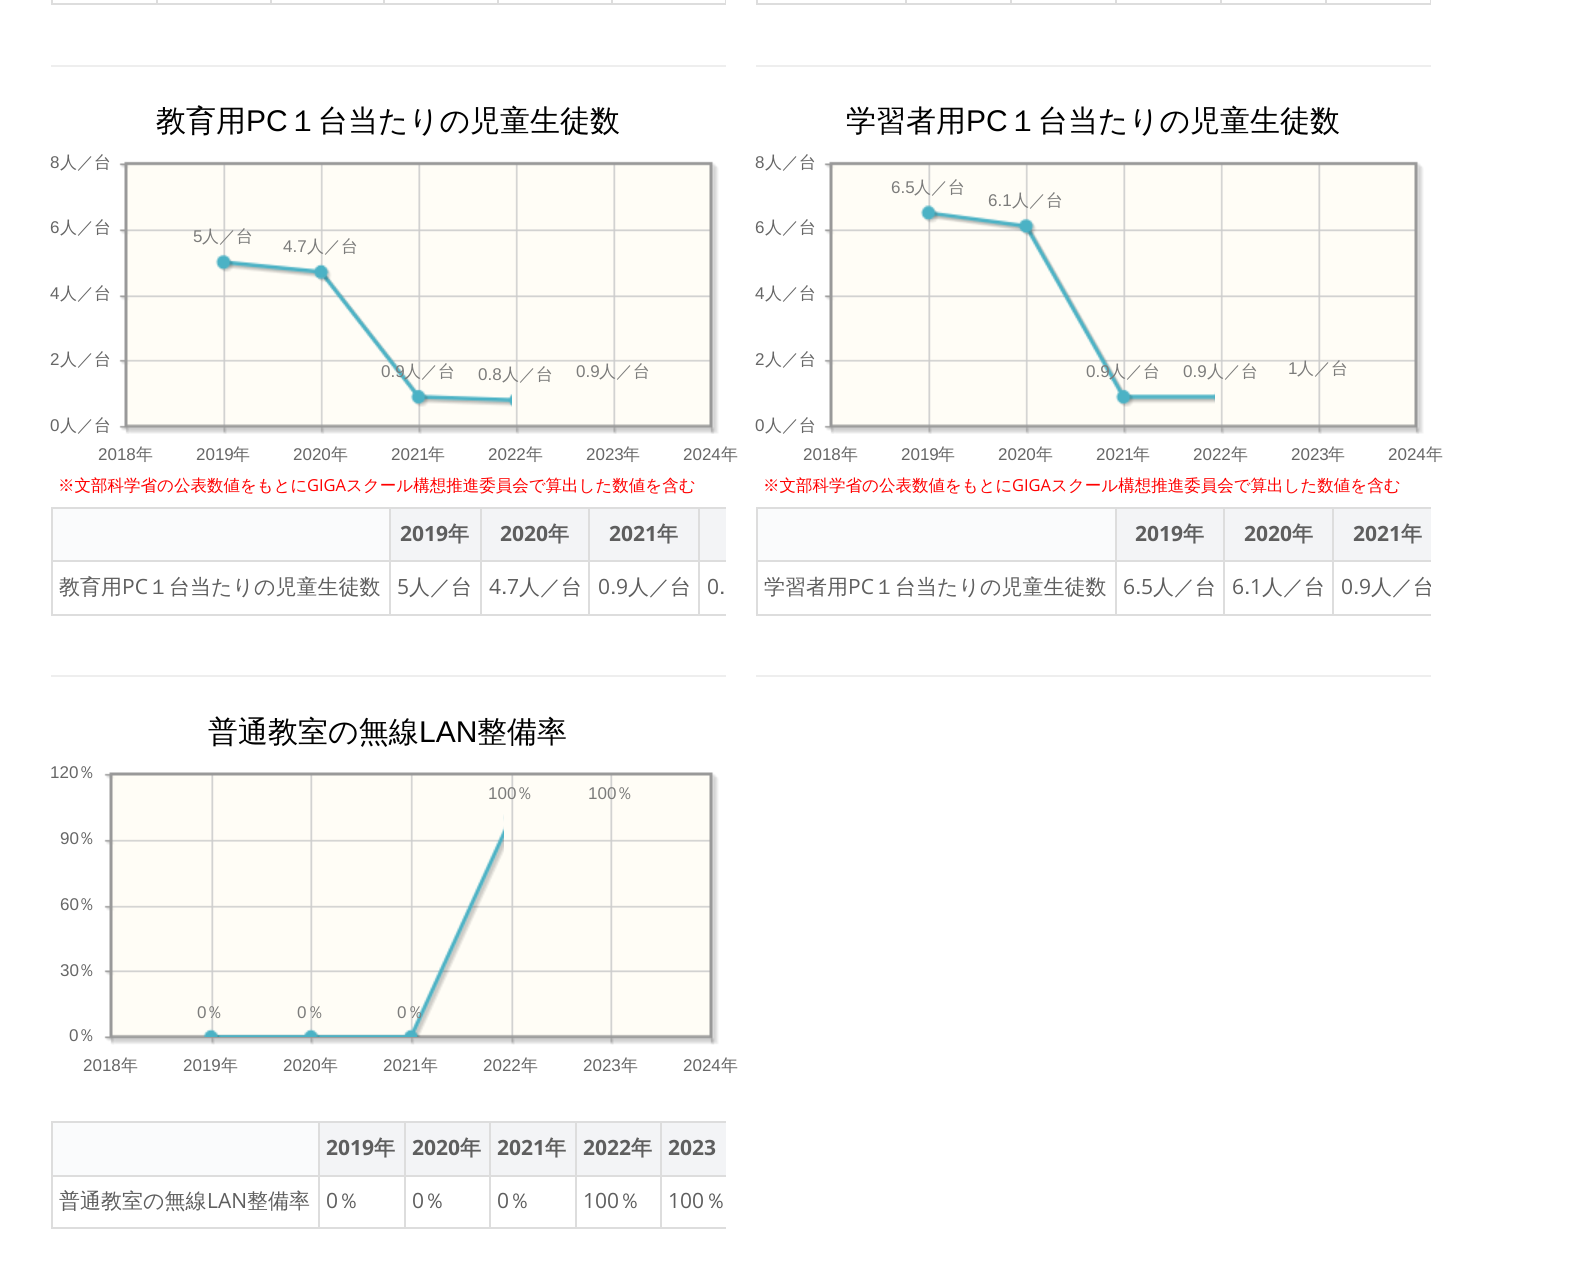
import math
import cairo

surface = cairo.ImageSurface(cairo.FORMAT_RGB24, 1570, 1266)
ctx = cairo.Context(surface)
options = cairo.FontOptions()
options.set_hint_metrics(cairo.HINT_METRICS_OFF)
options.set_hint_style(cairo.HINT_STYLE_NONE)
ctx.set_font_options(options)
ctx.set_miter_limit(4)


def picture(path, x, y, w, h):
    ctx.save()
    ctx.set_source_surface(cairo.ImageSurface.create_from_png(path), x, y)
    ctx.rectangle(x, y, w, h)
    ctx.fill()
    ctx.restore()


ctx.set_source_rgb(1, 1, 1)
ctx.paint()
ctx.set_source_rgb(0.867, 0.867, 0.867)
ctx.rectangle(725, 0, 1, 5)
ctx.fill()
ctx.rectangle(611, 3, 115, 2)
ctx.fill()
ctx.rectangle(611, 0, 2, 5)
ctx.fill()
ctx.rectangle(497, 3, 115, 2)
ctx.fill()
ctx.rectangle(497, 0, 2, 5)
ctx.fill()
ctx.rectangle(383, 3, 115, 2)
ctx.fill()
ctx.rectangle(383, 0, 2, 5)
ctx.fill()
ctx.rectangle(270, 3, 114, 2)
ctx.fill()
ctx.rectangle(270, 0, 2, 5)
ctx.fill()
ctx.rectangle(156, 3, 116, 2)
ctx.fill()
ctx.rectangle(156, 0, 2, 5)
ctx.fill()
ctx.rectangle(51, 3, 107, 2)
ctx.fill()
ctx.rectangle(51, 0, 2, 5)
ctx.fill()
ctx.set_source_rgb(0.933, 0.933, 0.933)
ctx.rectangle(51, 65, 675, 2)
ctx.fill()
ctx.set_source_rgb(0.867, 0.867, 0.867)
ctx.rectangle(1430, 0, 1, 5)
ctx.fill()
ctx.rectangle(1325, 3, 106, 2)
ctx.fill()
ctx.rectangle(1325, 0, 2, 5)
ctx.fill()
ctx.rectangle(1220, 3, 106, 2)
ctx.fill()
ctx.rectangle(1220, 0, 2, 5)
ctx.fill()
ctx.rectangle(1115, 3, 106, 2)
ctx.fill()
ctx.rectangle(1115, 0, 2, 5)
ctx.fill()
ctx.rectangle(1010, 3, 106, 2)
ctx.fill()
ctx.rectangle(1010, 0, 2, 5)
ctx.fill()
ctx.rectangle(905, 3, 106, 2)
ctx.fill()
ctx.rectangle(905, 0, 2, 5)
ctx.fill()
ctx.rectangle(756, 3, 150, 2)
ctx.fill()
ctx.rectangle(756, 0, 2, 5)
ctx.fill()
ctx.set_source_rgb(0.933, 0.933, 0.933)
ctx.rectangle(756, 65, 675, 2)
ctx.fill()
ctx.select_font_face("WenQuanYi Zen Hei Medium")
ctx.set_font_size(30)
ctx.set_source_rgb(0, 0, 0)
ctx.move_to(156, 131)
ctx.show_text("教育用")
ctx.select_font_face("Liberation Sans")
ctx.move_to(246, 131)
ctx.show_text("PC")
ctx.select_font_face("WenQuanYi Zen Hei Medium")
ctx.move_to(288, 131)
ctx.show_text("１台当たりの児童生徒数")
ctx.select_font_face("Liberation Sans")
ctx.set_font_size(17)
ctx.set_source_rgb(0.4, 0.4, 0.4)
ctx.move_to(50, 168)
ctx.show_text("8")
ctx.select_font_face("WenQuanYi Zen Hei Medium")
ctx.move_to(60, 168)
ctx.show_text("人／台")
ctx.select_font_face("Liberation Sans")
ctx.move_to(50, 233)
ctx.show_text("6")
ctx.select_font_face("WenQuanYi Zen Hei Medium")
ctx.move_to(60, 233)
ctx.show_text("人／台")
ctx.select_font_face("Liberation Sans")
ctx.move_to(50, 299)
ctx.show_text("4")
ctx.select_font_face("WenQuanYi Zen Hei Medium")
ctx.move_to(60, 299)
ctx.show_text("人／台")
ctx.select_font_face("Liberation Sans")
ctx.move_to(50, 365)
ctx.show_text("2")
ctx.select_font_face("WenQuanYi Zen Hei Medium")
ctx.move_to(60, 365)
ctx.show_text("人／台")
ctx.select_font_face("Liberation Sans")
ctx.move_to(50, 431)
ctx.show_text("0")
ctx.select_font_face("WenQuanYi Zen Hei Medium")
ctx.move_to(60, 431)
ctx.show_text("人／台")
picture("img1.png", 119, 161, 600, 273)
ctx.select_font_face("Liberation Sans")
ctx.set_source_rgb(0.486, 0.486, 0.482)
ctx.move_to(193, 242)
ctx.show_text("5")
ctx.select_font_face("WenQuanYi Zen Hei Medium")
ctx.move_to(202, 242)
ctx.show_text("人／台")
ctx.select_font_face("Liberation Sans")
ctx.move_to(283, 252)
ctx.show_text("4.7")
picture("img2.png", 215, 254, 297, 153)
ctx.select_font_face("WenQuanYi Zen Hei Medium")
ctx.move_to(307, 252)
ctx.show_text("人／台")
ctx.select_font_face("Liberation Sans")
ctx.move_to(381, 377)
ctx.show_text("0.9")
ctx.select_font_face("WenQuanYi Zen Hei Medium")
ctx.move_to(404, 377)
ctx.show_text("人／台")
ctx.select_font_face("Liberation Sans")
ctx.move_to(478, 380)
ctx.show_text("0.8")
ctx.select_font_face("WenQuanYi Zen Hei Medium")
ctx.move_to(502, 380)
ctx.show_text("人／台")
ctx.select_font_face("Liberation Sans")
ctx.move_to(576, 377)
ctx.show_text("0.9")
ctx.select_font_face("WenQuanYi Zen Hei Medium")
ctx.move_to(599, 377)
ctx.show_text("人／台")
ctx.select_font_face("Liberation Sans")
ctx.set_source_rgb(0.4, 0.4, 0.4)
ctx.move_to(98, 460)
ctx.show_text("2018")
ctx.select_font_face("WenQuanYi Zen Hei Medium")
ctx.move_to(136, 460)
ctx.show_text("年")
ctx.select_font_face("Liberation Sans")
ctx.move_to(196, 460)
ctx.show_text("2019")
ctx.select_font_face("WenQuanYi Zen Hei Medium")
ctx.move_to(233, 460)
ctx.show_text("年")
ctx.select_font_face("Liberation Sans")
ctx.move_to(293, 460)
ctx.show_text("2020")
ctx.select_font_face("WenQuanYi Zen Hei Medium")
ctx.move_to(331, 460)
ctx.show_text("年")
ctx.select_font_face("Liberation Sans")
ctx.move_to(391, 460)
ctx.show_text("2021")
ctx.select_font_face("WenQuanYi Zen Hei Medium")
ctx.move_to(428, 460)
ctx.show_text("年")
ctx.select_font_face("Liberation Sans")
ctx.move_to(488, 460)
ctx.show_text("2022")
ctx.select_font_face("WenQuanYi Zen Hei Medium")
ctx.move_to(526, 460)
ctx.show_text("年")
ctx.select_font_face("Liberation Sans")
ctx.move_to(586, 460)
ctx.show_text("2023")
ctx.select_font_face("WenQuanYi Zen Hei Medium")
ctx.move_to(623, 460)
ctx.show_text("年")
ctx.select_font_face("Liberation Sans")
ctx.move_to(683, 460)
ctx.show_text("2024")
ctx.select_font_face("WenQuanYi Zen Hei Medium")
ctx.move_to(721, 460)
ctx.show_text("年")
ctx.set_font_size(16.5)
ctx.set_source_rgb(1, 0, 0)
ctx.move_to(58, 491)
ctx.show_text("※文部科学省の公表数値をもとに")
ctx.select_font_face("Open Sans")
ctx.move_to(307, 491)
ctx.show_text("GIGA")
ctx.select_font_face("WenQuanYi Zen Hei Medium")
ctx.move_to(346, 491)
ctx.show_text("スクール構想推進委員会で算出した数値を含む")
ctx.set_source_rgb(0.98, 0.984, 0.988)
ctx.rectangle(53, 509, 336, 51)
ctx.fill()
ctx.set_source_rgb(0.867, 0.867, 0.867)
ctx.rectangle(698, 507, 28, 2)
ctx.fill()
ctx.rectangle(698, 560, 28, 2)
ctx.fill()
ctx.rectangle(698, 614, 28, 2)
ctx.fill()
ctx.rectangle(698, 560, 2, 55)
ctx.fill()
ctx.rectangle(588, 560, 111, 2)
ctx.fill()
ctx.rectangle(698, 507, 2, 54)
ctx.fill()
ctx.rectangle(588, 507, 111, 2)
ctx.fill()
ctx.rectangle(588, 614, 111, 2)
ctx.fill()
ctx.rectangle(588, 560, 2, 55)
ctx.fill()
ctx.rectangle(480, 560, 110, 2)
ctx.fill()
ctx.rectangle(588, 507, 2, 54)
ctx.fill()
ctx.rectangle(480, 507, 110, 2)
ctx.fill()
ctx.rectangle(480, 614, 110, 2)
ctx.fill()
ctx.rectangle(480, 560, 2, 55)
ctx.fill()
ctx.rectangle(389, 560, 93, 2)
ctx.fill()
ctx.rectangle(480, 507, 2, 54)
ctx.fill()
ctx.rectangle(389, 507, 93, 2)
ctx.fill()
ctx.rectangle(389, 614, 93, 2)
ctx.fill()
ctx.rectangle(389, 560, 2, 55)
ctx.fill()
ctx.rectangle(51, 560, 339, 2)
ctx.fill()
ctx.rectangle(389, 507, 2, 54)
ctx.fill()
ctx.rectangle(51, 507, 339, 2)
ctx.fill()
ctx.rectangle(51, 614, 339, 2)
ctx.fill()
ctx.rectangle(51, 560, 2, 55)
ctx.fill()
ctx.rectangle(51, 507, 2, 54)
ctx.fill()
ctx.set_source_rgb(0.953, 0.957, 0.961)
ctx.rectangle(391, 509, 89, 51)
ctx.fill()
ctx.select_font_face("Open Sans", cairo.FONT_SLANT_NORMAL, cairo.FONT_WEIGHT_BOLD)
ctx.set_font_size(21)
ctx.set_source_rgb(0.369, 0.369, 0.369)
ctx.move_to(400, 541)
ctx.show_text("2019")
ctx.select_font_face("WenQuanYi Zen Hei", cairo.FONT_SLANT_NORMAL, cairo.FONT_WEIGHT_BOLD)
ctx.move_to(448, 541)
ctx.show_text("年")
ctx.set_source_rgb(0.953, 0.957, 0.961)
ctx.rectangle(482, 509, 106, 51)
ctx.fill()
ctx.select_font_face("Open Sans", cairo.FONT_SLANT_NORMAL, cairo.FONT_WEIGHT_BOLD)
ctx.set_source_rgb(0.369, 0.369, 0.369)
ctx.move_to(500, 541)
ctx.show_text("2020")
ctx.select_font_face("WenQuanYi Zen Hei", cairo.FONT_SLANT_NORMAL, cairo.FONT_WEIGHT_BOLD)
ctx.move_to(548, 541)
ctx.show_text("年")
ctx.set_source_rgb(0.953, 0.957, 0.961)
ctx.rectangle(590, 509, 108, 51)
ctx.fill()
ctx.select_font_face("Open Sans", cairo.FONT_SLANT_NORMAL, cairo.FONT_WEIGHT_BOLD)
ctx.set_source_rgb(0.369, 0.369, 0.369)
ctx.move_to(609, 541)
ctx.show_text("2021")
ctx.select_font_face("WenQuanYi Zen Hei", cairo.FONT_SLANT_NORMAL, cairo.FONT_WEIGHT_BOLD)
ctx.move_to(657, 541)
ctx.show_text("年")
ctx.set_source_rgb(0.953, 0.957, 0.961)
ctx.rectangle(700, 509, 26, 51)
ctx.fill()
ctx.select_font_face("WenQuanYi Zen Hei Medium")
ctx.set_source_rgb(0.369, 0.369, 0.369)
ctx.move_to(59, 594)
ctx.show_text("教育用")
ctx.select_font_face("Open Sans")
ctx.move_to(122, 594)
ctx.show_text("PC")
ctx.select_font_face("WenQuanYi Zen Hei Medium")
ctx.move_to(148, 594)
ctx.show_text("１台当たりの児童生徒数")
ctx.select_font_face("Open Sans")
ctx.move_to(397, 594)
ctx.show_text("5")
ctx.select_font_face("WenQuanYi Zen Hei Medium")
ctx.move_to(409, 594)
ctx.show_text("人／台")
ctx.select_font_face("Open Sans")
ctx.move_to(489, 594)
ctx.show_text("4")
ctx.select_font_face("WenQuanYi Zen Hei Medium")
ctx.move_to(501, 594)
ctx.show_text(".")
ctx.select_font_face("Open Sans")
ctx.move_to(507, 594)
ctx.show_text("7")
ctx.select_font_face("WenQuanYi Zen Hei Medium")
ctx.move_to(519, 594)
ctx.show_text("人／台")
ctx.select_font_face("Open Sans")
ctx.move_to(598, 594)
ctx.show_text("0")
ctx.select_font_face("WenQuanYi Zen Hei Medium")
ctx.move_to(610, 594)
ctx.show_text(".")
ctx.select_font_face("Open Sans")
ctx.move_to(616, 594)
ctx.show_text("9")
ctx.select_font_face("WenQuanYi Zen Hei Medium")
ctx.move_to(628, 594)
ctx.show_text("人／台")
ctx.select_font_face("Open Sans")
ctx.move_to(707, 594)
ctx.show_text("0")
ctx.select_font_face("WenQuanYi Zen Hei Medium")
ctx.move_to(719, 594)
ctx.show_text(".")
ctx.set_source_rgb(0.933, 0.933, 0.933)
ctx.rectangle(51, 675, 675, 2)
ctx.fill()
ctx.set_font_size(30)
ctx.set_source_rgb(0, 0, 0)
ctx.move_to(846, 131)
ctx.show_text("学習者用")
ctx.select_font_face("Liberation Sans")
ctx.move_to(966, 131)
ctx.show_text("PC")
ctx.select_font_face("WenQuanYi Zen Hei Medium")
ctx.move_to(1008, 131)
ctx.show_text("１台当たりの児童生徒数")
ctx.select_font_face("Liberation Sans")
ctx.set_font_size(17)
ctx.set_source_rgb(0.4, 0.4, 0.4)
ctx.move_to(755, 168)
ctx.show_text("8")
ctx.select_font_face("WenQuanYi Zen Hei Medium")
ctx.move_to(765, 168)
ctx.show_text("人／台")
ctx.select_font_face("Liberation Sans")
ctx.move_to(755, 233)
ctx.show_text("6")
ctx.select_font_face("WenQuanYi Zen Hei Medium")
ctx.move_to(765, 233)
ctx.show_text("人／台")
ctx.select_font_face("Liberation Sans")
ctx.move_to(755, 299)
ctx.show_text("4")
ctx.select_font_face("WenQuanYi Zen Hei Medium")
ctx.move_to(765, 299)
ctx.show_text("人／台")
ctx.select_font_face("Liberation Sans")
ctx.move_to(755, 365)
ctx.show_text("2")
ctx.select_font_face("WenQuanYi Zen Hei Medium")
ctx.move_to(765, 365)
ctx.show_text("人／台")
ctx.select_font_face("Liberation Sans")
ctx.move_to(755, 431)
ctx.show_text("0")
ctx.select_font_face("WenQuanYi Zen Hei Medium")
ctx.move_to(765, 431)
ctx.show_text("人／台")
picture("img1.png", 824, 161, 600, 273)
ctx.select_font_face("Liberation Sans")
ctx.set_source_rgb(0.486, 0.486, 0.482)
ctx.move_to(891, 193)
ctx.show_text("6.5")
ctx.select_font_face("WenQuanYi Zen Hei Medium")
ctx.move_to(914, 193)
ctx.show_text("人／台")
picture("img3.png", 920, 205, 295, 202)
ctx.select_font_face("Liberation Sans")
ctx.move_to(988, 206)
ctx.show_text("6.1")
ctx.select_font_face("WenQuanYi Zen Hei Medium")
ctx.move_to(1012, 206)
ctx.show_text("人／台")
ctx.select_font_face("Liberation Sans")
ctx.move_to(1288, 374)
ctx.show_text("1")
ctx.select_font_face("WenQuanYi Zen Hei Medium")
ctx.move_to(1297, 374)
ctx.show_text("人／台")
ctx.select_font_face("Liberation Sans")
ctx.move_to(1086, 377)
ctx.show_text("0.9")
ctx.select_font_face("WenQuanYi Zen Hei Medium")
ctx.move_to(1109, 377)
ctx.show_text("人／台")
ctx.select_font_face("Liberation Sans")
ctx.move_to(1183, 377)
ctx.show_text("0.9")
ctx.select_font_face("WenQuanYi Zen Hei Medium")
ctx.move_to(1207, 377)
ctx.show_text("人／台")
ctx.select_font_face("Liberation Sans")
ctx.set_source_rgb(0.4, 0.4, 0.4)
ctx.move_to(803, 460)
ctx.show_text("2018")
ctx.select_font_face("WenQuanYi Zen Hei Medium")
ctx.move_to(841, 460)
ctx.show_text("年")
ctx.select_font_face("Liberation Sans")
ctx.move_to(901, 460)
ctx.show_text("2019")
ctx.select_font_face("WenQuanYi Zen Hei Medium")
ctx.move_to(938, 460)
ctx.show_text("年")
ctx.select_font_face("Liberation Sans")
ctx.move_to(998, 460)
ctx.show_text("2020")
ctx.select_font_face("WenQuanYi Zen Hei Medium")
ctx.move_to(1036, 460)
ctx.show_text("年")
ctx.select_font_face("Liberation Sans")
ctx.move_to(1096, 460)
ctx.show_text("2021")
ctx.select_font_face("WenQuanYi Zen Hei Medium")
ctx.move_to(1133, 460)
ctx.show_text("年")
ctx.select_font_face("Liberation Sans")
ctx.move_to(1193, 460)
ctx.show_text("2022")
ctx.select_font_face("WenQuanYi Zen Hei Medium")
ctx.move_to(1231, 460)
ctx.show_text("年")
ctx.select_font_face("Liberation Sans")
ctx.move_to(1291, 460)
ctx.show_text("2023")
ctx.select_font_face("WenQuanYi Zen Hei Medium")
ctx.move_to(1328, 460)
ctx.show_text("年")
ctx.select_font_face("Liberation Sans")
ctx.move_to(1388, 460)
ctx.show_text("2024")
ctx.select_font_face("WenQuanYi Zen Hei Medium")
ctx.move_to(1426, 460)
ctx.show_text("年")
ctx.set_font_size(16.5)
ctx.set_source_rgb(1, 0, 0)
ctx.move_to(763, 491)
ctx.show_text("※文部科学省の公表数値をもとに")
ctx.select_font_face("Open Sans")
ctx.move_to(1012, 491)
ctx.show_text("GIGA")
ctx.select_font_face("WenQuanYi Zen Hei Medium")
ctx.move_to(1051, 491)
ctx.show_text("スクール構想推進委員会で算出した数値を含む")
ctx.set_source_rgb(0.98, 0.984, 0.988)
ctx.rectangle(758, 509, 357, 51)
ctx.fill()
ctx.set_source_rgb(0.867, 0.867, 0.867)
ctx.rectangle(1332, 507, 99, 2)
ctx.fill()
ctx.rectangle(1332, 560, 99, 2)
ctx.fill()
ctx.rectangle(1332, 614, 99, 2)
ctx.fill()
ctx.rectangle(1332, 560, 2, 55)
ctx.fill()
ctx.rectangle(1223, 560, 111, 2)
ctx.fill()
ctx.rectangle(1332, 507, 2, 54)
ctx.fill()
ctx.rectangle(1223, 507, 111, 2)
ctx.fill()
ctx.rectangle(1223, 614, 111, 2)
ctx.fill()
ctx.rectangle(1223, 560, 2, 55)
ctx.fill()
ctx.rectangle(1115, 560, 109, 2)
ctx.fill()
ctx.rectangle(1223, 507, 2, 54)
ctx.fill()
ctx.rectangle(1115, 507, 109, 2)
ctx.fill()
ctx.rectangle(1115, 614, 109, 2)
ctx.fill()
ctx.rectangle(1115, 560, 2, 55)
ctx.fill()
ctx.rectangle(756, 560, 360, 2)
ctx.fill()
ctx.rectangle(1115, 507, 2, 54)
ctx.fill()
ctx.rectangle(756, 507, 360, 2)
ctx.fill()
ctx.rectangle(756, 614, 360, 2)
ctx.fill()
ctx.rectangle(756, 560, 2, 55)
ctx.fill()
ctx.rectangle(756, 507, 2, 54)
ctx.fill()
ctx.set_source_rgb(0.953, 0.957, 0.961)
ctx.rectangle(1117, 509, 106, 51)
ctx.fill()
ctx.select_font_face("Open Sans", cairo.FONT_SLANT_NORMAL, cairo.FONT_WEIGHT_BOLD)
ctx.set_font_size(21)
ctx.set_source_rgb(0.369, 0.369, 0.369)
ctx.move_to(1135, 541)
ctx.show_text("2019")
ctx.select_font_face("WenQuanYi Zen Hei", cairo.FONT_SLANT_NORMAL, cairo.FONT_WEIGHT_BOLD)
ctx.move_to(1183, 541)
ctx.show_text("年")
ctx.set_source_rgb(0.953, 0.957, 0.961)
ctx.rectangle(1225, 509, 107, 51)
ctx.fill()
ctx.select_font_face("Open Sans", cairo.FONT_SLANT_NORMAL, cairo.FONT_WEIGHT_BOLD)
ctx.set_source_rgb(0.369, 0.369, 0.369)
ctx.move_to(1244, 541)
ctx.show_text("2020")
ctx.select_font_face("WenQuanYi Zen Hei", cairo.FONT_SLANT_NORMAL, cairo.FONT_WEIGHT_BOLD)
ctx.move_to(1292, 541)
ctx.show_text("年")
ctx.set_source_rgb(0.953, 0.957, 0.961)
ctx.rectangle(1334, 509, 97, 51)
ctx.fill()
ctx.select_font_face("Open Sans", cairo.FONT_SLANT_NORMAL, cairo.FONT_WEIGHT_BOLD)
ctx.set_source_rgb(0.369, 0.369, 0.369)
ctx.move_to(1353, 541)
ctx.show_text("2021")
ctx.select_font_face("WenQuanYi Zen Hei", cairo.FONT_SLANT_NORMAL, cairo.FONT_WEIGHT_BOLD)
ctx.move_to(1401, 541)
ctx.show_text("年")
ctx.select_font_face("WenQuanYi Zen Hei Medium")
ctx.move_to(764, 594)
ctx.show_text("学習者用")
ctx.select_font_face("Open Sans")
ctx.move_to(848, 594)
ctx.show_text("PC")
ctx.select_font_face("WenQuanYi Zen Hei Medium")
ctx.move_to(874, 594)
ctx.show_text("１台当たりの児童生徒数")
ctx.select_font_face("Open Sans")
ctx.move_to(1123, 594)
ctx.show_text("6")
ctx.select_font_face("WenQuanYi Zen Hei Medium")
ctx.move_to(1135, 594)
ctx.show_text(".")
ctx.select_font_face("Open Sans")
ctx.move_to(1141, 594)
ctx.show_text("5")
ctx.select_font_face("WenQuanYi Zen Hei Medium")
ctx.move_to(1153, 594)
ctx.show_text("人／台")
ctx.select_font_face("Open Sans")
ctx.move_to(1232, 594)
ctx.show_text("6")
ctx.select_font_face("WenQuanYi Zen Hei Medium")
ctx.move_to(1244, 594)
ctx.show_text(".")
ctx.select_font_face("Open Sans")
ctx.move_to(1250, 594)
ctx.show_text("1")
ctx.select_font_face("WenQuanYi Zen Hei Medium")
ctx.move_to(1262, 594)
ctx.show_text("人／台")
ctx.select_font_face("Open Sans")
ctx.move_to(1341, 594)
ctx.show_text("0")
ctx.select_font_face("WenQuanYi Zen Hei Medium")
ctx.move_to(1353, 594)
ctx.show_text(".")
ctx.select_font_face("Open Sans")
ctx.move_to(1359, 594)
ctx.show_text("9")
ctx.save()
ctx.rectangle(756, 507, 675, 138)
ctx.clip()
ctx.select_font_face("WenQuanYi Zen Hei Medium")
ctx.move_to(1371, 594)
ctx.show_text("人／台")
ctx.restore()
ctx.set_source_rgb(0.933, 0.933, 0.933)
ctx.rectangle(756, 675, 675, 2)
ctx.fill()
ctx.select_font_face("WenQuanYi Zen Hei Medium")
ctx.set_font_size(30)
ctx.set_source_rgb(0, 0, 0)
ctx.move_to(208, 742)
ctx.show_text("普通教室の無線")
ctx.select_font_face("Liberation Sans")
ctx.move_to(419, 742)
ctx.show_text("LAN")
ctx.select_font_face("WenQuanYi Zen Hei Medium")
ctx.move_to(477, 742)
ctx.show_text("整備率")
ctx.select_font_face("Liberation Sans")
ctx.set_font_size(17)
ctx.set_source_rgb(0.4, 0.4, 0.4)
ctx.move_to(50, 778)
ctx.show_text("120")
ctx.select_font_face("WenQuanYi Zen Hei Medium")
ctx.move_to(78, 778)
ctx.show_text("％")
ctx.select_font_face("Liberation Sans")
ctx.move_to(60, 844)
ctx.show_text("90")
ctx.select_font_face("WenQuanYi Zen Hei Medium")
ctx.move_to(78, 844)
ctx.show_text("％")
ctx.select_font_face("Liberation Sans")
ctx.move_to(60, 910)
ctx.show_text("60")
ctx.select_font_face("WenQuanYi Zen Hei Medium")
ctx.move_to(78, 910)
ctx.show_text("％")
ctx.select_font_face("Liberation Sans")
ctx.move_to(60, 976)
ctx.show_text("30")
ctx.select_font_face("WenQuanYi Zen Hei Medium")
ctx.move_to(78, 976)
ctx.show_text("％")
ctx.select_font_face("Liberation Sans")
ctx.move_to(69, 1041)
ctx.show_text("0")
ctx.select_font_face("WenQuanYi Zen Hei Medium")
ctx.move_to(78, 1041)
ctx.show_text("％")
picture("img4.png", 104, 772, 615, 273)
ctx.select_font_face("Liberation Sans")
ctx.set_source_rgb(0.486, 0.486, 0.482)
ctx.move_to(488, 799)
ctx.show_text("100")
ctx.select_font_face("WenQuanYi Zen Hei Medium")
ctx.move_to(516, 799)
ctx.show_text("％")
ctx.select_font_face("Liberation Sans")
ctx.move_to(588, 799)
ctx.show_text("100")
ctx.select_font_face("WenQuanYi Zen Hei Medium")
ctx.move_to(616, 799)
ctx.show_text("％")
picture("img5.png", 203, 814, 301, 223)
ctx.select_font_face("Liberation Sans")
ctx.move_to(197, 1018)
ctx.show_text("0")
ctx.select_font_face("WenQuanYi Zen Hei Medium")
ctx.move_to(206, 1018)
ctx.show_text("％")
ctx.select_font_face("Liberation Sans")
ctx.move_to(297, 1018)
ctx.show_text("0")
ctx.select_font_face("WenQuanYi Zen Hei Medium")
ctx.move_to(307, 1018)
ctx.show_text("％")
ctx.select_font_face("Liberation Sans")
ctx.move_to(397, 1018)
ctx.show_text("0")
ctx.select_font_face("WenQuanYi Zen Hei Medium")
ctx.move_to(407, 1018)
ctx.show_text("％")
ctx.select_font_face("Liberation Sans")
ctx.set_source_rgb(0.4, 0.4, 0.4)
ctx.move_to(83, 1071)
ctx.show_text("2018")
ctx.select_font_face("WenQuanYi Zen Hei Medium")
ctx.move_to(121, 1071)
ctx.show_text("年")
ctx.select_font_face("Liberation Sans")
ctx.move_to(183, 1071)
ctx.show_text("2019")
ctx.select_font_face("WenQuanYi Zen Hei Medium")
ctx.move_to(221, 1071)
ctx.show_text("年")
ctx.select_font_face("Liberation Sans")
ctx.move_to(283, 1071)
ctx.show_text("2020")
ctx.select_font_face("WenQuanYi Zen Hei Medium")
ctx.move_to(321, 1071)
ctx.show_text("年")
ctx.select_font_face("Liberation Sans")
ctx.move_to(383, 1071)
ctx.show_text("2021")
ctx.select_font_face("WenQuanYi Zen Hei Medium")
ctx.move_to(421, 1071)
ctx.show_text("年")
ctx.select_font_face("Liberation Sans")
ctx.move_to(483, 1071)
ctx.show_text("2022")
ctx.select_font_face("WenQuanYi Zen Hei Medium")
ctx.move_to(521, 1071)
ctx.show_text("年")
ctx.select_font_face("Liberation Sans")
ctx.move_to(583, 1071)
ctx.show_text("2023")
ctx.select_font_face("WenQuanYi Zen Hei Medium")
ctx.move_to(621, 1071)
ctx.show_text("年")
ctx.select_font_face("Liberation Sans")
ctx.move_to(683, 1071)
ctx.show_text("2024")
ctx.select_font_face("WenQuanYi Zen Hei Medium")
ctx.move_to(721, 1071)
ctx.show_text("年")
ctx.set_source_rgb(0.98, 0.984, 0.988)
ctx.rectangle(53, 1123, 265, 52)
ctx.fill()
ctx.set_source_rgb(0.867, 0.867, 0.867)
ctx.rectangle(660, 1121, 66, 2)
ctx.fill()
ctx.rectangle(660, 1175, 66, 2)
ctx.fill()
ctx.rectangle(660, 1227, 66, 2)
ctx.fill()
ctx.rectangle(660, 1175, 2, 54)
ctx.fill()
ctx.rectangle(575, 1175, 87, 2)
ctx.fill()
ctx.rectangle(660, 1121, 2, 55)
ctx.fill()
ctx.rectangle(575, 1121, 87, 2)
ctx.fill()
ctx.rectangle(575, 1227, 87, 2)
ctx.fill()
ctx.rectangle(575, 1175, 2, 54)
ctx.fill()
ctx.rectangle(489, 1175, 87, 2)
ctx.fill()
ctx.rectangle(575, 1121, 2, 55)
ctx.fill()
ctx.rectangle(489, 1121, 87, 2)
ctx.fill()
ctx.rectangle(489, 1227, 87, 2)
ctx.fill()
ctx.rectangle(489, 1175, 2, 54)
ctx.fill()
ctx.rectangle(404, 1175, 87, 2)
ctx.fill()
ctx.rectangle(489, 1121, 2, 55)
ctx.fill()
ctx.rectangle(404, 1121, 87, 2)
ctx.fill()
ctx.rectangle(404, 1227, 87, 2)
ctx.fill()
ctx.rectangle(404, 1175, 2, 54)
ctx.fill()
ctx.rectangle(318, 1175, 87, 2)
ctx.fill()
ctx.rectangle(404, 1121, 2, 55)
ctx.fill()
ctx.rectangle(318, 1121, 87, 2)
ctx.fill()
ctx.rectangle(318, 1227, 87, 2)
ctx.fill()
ctx.rectangle(318, 1175, 2, 54)
ctx.fill()
ctx.rectangle(51, 1175, 269, 2)
ctx.fill()
ctx.rectangle(318, 1121, 2, 55)
ctx.fill()
ctx.rectangle(51, 1121, 269, 2)
ctx.fill()
ctx.rectangle(51, 1227, 269, 2)
ctx.fill()
ctx.rectangle(51, 1175, 2, 54)
ctx.fill()
ctx.rectangle(51, 1121, 2, 55)
ctx.fill()
ctx.set_source_rgb(0.953, 0.957, 0.961)
ctx.rectangle(320, 1123, 84, 52)
ctx.fill()
ctx.select_font_face("Open Sans", cairo.FONT_SLANT_NORMAL, cairo.FONT_WEIGHT_BOLD)
ctx.set_font_size(21)
ctx.set_source_rgb(0.369, 0.369, 0.369)
ctx.move_to(326, 1155)
ctx.show_text("2019")
ctx.select_font_face("WenQuanYi Zen Hei", cairo.FONT_SLANT_NORMAL, cairo.FONT_WEIGHT_BOLD)
ctx.move_to(374, 1155)
ctx.show_text("年")
ctx.set_source_rgb(0.953, 0.957, 0.961)
ctx.rectangle(406, 1123, 83, 52)
ctx.fill()
ctx.select_font_face("Open Sans", cairo.FONT_SLANT_NORMAL, cairo.FONT_WEIGHT_BOLD)
ctx.set_source_rgb(0.369, 0.369, 0.369)
ctx.move_to(412, 1155)
ctx.show_text("2020")
ctx.select_font_face("WenQuanYi Zen Hei", cairo.FONT_SLANT_NORMAL, cairo.FONT_WEIGHT_BOLD)
ctx.move_to(460, 1155)
ctx.show_text("年")
ctx.set_source_rgb(0.953, 0.957, 0.961)
ctx.rectangle(491, 1123, 84, 52)
ctx.fill()
ctx.select_font_face("Open Sans", cairo.FONT_SLANT_NORMAL, cairo.FONT_WEIGHT_BOLD)
ctx.set_source_rgb(0.369, 0.369, 0.369)
ctx.move_to(497, 1155)
ctx.show_text("2021")
ctx.select_font_face("WenQuanYi Zen Hei", cairo.FONT_SLANT_NORMAL, cairo.FONT_WEIGHT_BOLD)
ctx.move_to(545, 1155)
ctx.show_text("年")
ctx.set_source_rgb(0.953, 0.957, 0.961)
ctx.rectangle(577, 1123, 83, 52)
ctx.fill()
ctx.select_font_face("Open Sans", cairo.FONT_SLANT_NORMAL, cairo.FONT_WEIGHT_BOLD)
ctx.set_source_rgb(0.369, 0.369, 0.369)
ctx.move_to(583, 1155)
ctx.show_text("2022")
ctx.select_font_face("WenQuanYi Zen Hei", cairo.FONT_SLANT_NORMAL, cairo.FONT_WEIGHT_BOLD)
ctx.move_to(631, 1155)
ctx.show_text("年")
ctx.set_source_rgb(0.953, 0.957, 0.961)
ctx.rectangle(662, 1123, 64, 52)
ctx.fill()
ctx.select_font_face("Open Sans", cairo.FONT_SLANT_NORMAL, cairo.FONT_WEIGHT_BOLD)
ctx.set_source_rgb(0.369, 0.369, 0.369)
ctx.move_to(668, 1155)
ctx.show_text("2023")
ctx.select_font_face("WenQuanYi Zen Hei Medium")
ctx.move_to(59, 1208)
ctx.show_text("普通教室の無線")
ctx.select_font_face("Open Sans")
ctx.move_to(207, 1208)
ctx.show_text("LAN")
ctx.select_font_face("WenQuanYi Zen Hei Medium")
ctx.move_to(247, 1208)
ctx.show_text("整備率")
ctx.select_font_face("Open Sans")
ctx.move_to(326, 1208)
ctx.show_text("0")
ctx.select_font_face("WenQuanYi Zen Hei Medium")
ctx.move_to(338, 1208)
ctx.show_text("％")
ctx.select_font_face("Open Sans")
ctx.move_to(412, 1208)
ctx.show_text("0")
ctx.select_font_face("WenQuanYi Zen Hei Medium")
ctx.move_to(424, 1208)
ctx.show_text("％")
ctx.select_font_face("Open Sans")
ctx.move_to(497, 1208)
ctx.show_text("0")
ctx.select_font_face("WenQuanYi Zen Hei Medium")
ctx.move_to(509, 1208)
ctx.show_text("％")
ctx.select_font_face("Open Sans")
ctx.move_to(583, 1208)
ctx.show_text("100")
ctx.select_font_face("WenQuanYi Zen Hei Medium")
ctx.move_to(619, 1208)
ctx.show_text("％")
ctx.select_font_face("Open Sans")
ctx.move_to(668, 1208)
ctx.show_text("100")
ctx.select_font_face("WenQuanYi Zen Hei Medium")
ctx.move_to(705, 1208)
ctx.show_text("％")
surface.write_to_png("page.png")
